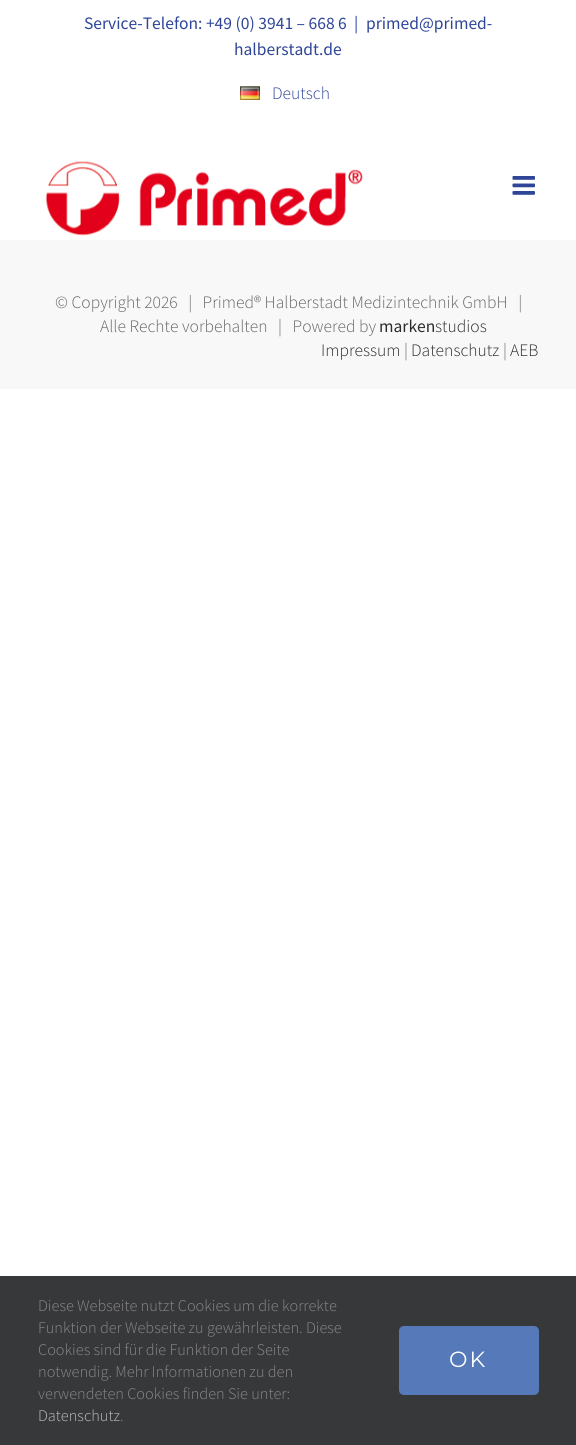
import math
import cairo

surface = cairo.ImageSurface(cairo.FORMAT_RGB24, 576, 1445)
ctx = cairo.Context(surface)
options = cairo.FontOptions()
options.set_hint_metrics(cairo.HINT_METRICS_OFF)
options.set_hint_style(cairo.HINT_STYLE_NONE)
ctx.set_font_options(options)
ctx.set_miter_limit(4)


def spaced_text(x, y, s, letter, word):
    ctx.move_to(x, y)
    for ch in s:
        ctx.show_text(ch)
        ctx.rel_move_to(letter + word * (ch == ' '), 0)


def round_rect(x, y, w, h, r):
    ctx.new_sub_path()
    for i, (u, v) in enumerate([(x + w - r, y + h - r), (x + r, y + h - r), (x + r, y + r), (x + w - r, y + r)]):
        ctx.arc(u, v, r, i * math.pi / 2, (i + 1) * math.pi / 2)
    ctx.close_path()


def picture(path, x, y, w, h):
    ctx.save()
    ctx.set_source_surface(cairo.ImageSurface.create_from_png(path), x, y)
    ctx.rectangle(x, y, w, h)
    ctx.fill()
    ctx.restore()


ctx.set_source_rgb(1, 1, 1)
ctx.paint()
ctx.select_font_face("Source Sans Pro")
ctx.set_font_size(17.5)
ctx.set_source_rgb(0.184, 0.275, 0.596)
ctx.move_to(84, 29)
ctx.show_text("Service-Telefon: +49 (0) 3941 – 668 6")
ctx.move_to(354, 29)
ctx.show_text("|")
ctx.move_to(366, 29)
ctx.show_text("primed@primed-")
ctx.move_to(234, 55)
ctx.show_text("halberstadt.de")
picture("img1.png", 240, 86, 20, 14)
ctx.select_font_face("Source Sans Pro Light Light")
ctx.move_to(272, 99)
ctx.show_text("Deutsch")
picture("img2.png", 45, 161, 318, 75)
picture("img3.png", 512, 176, 23, 19)
ctx.set_source_rgb(0.969, 0.969, 0.969)
ctx.rectangle(0, 240, 576, 149)
ctx.fill()
ctx.set_source_rgb(0.4, 0.4, 0.4)
ctx.move_to(55, 308)
ctx.show_text("© Copyright 2026   |   Primed® Halberstadt Medizintechnik GmbH   |")
ctx.move_to(100, 332)
ctx.show_text("Alle Rechte vorbehalten   |   Powered by")
ctx.select_font_face("Source Sans Pro")
ctx.set_source_rgb(0.169, 0.169, 0.169)
ctx.move_to(379, 332)
ctx.show_text("marken")
ctx.select_font_face("Source Sans Pro Light Light")
ctx.move_to(435, 332)
ctx.show_text("studios")
ctx.move_to(321, 356)
ctx.show_text("Impressum")
ctx.set_source_rgb(0.4, 0.4, 0.4)
ctx.move_to(404, 356)
ctx.show_text("|")
ctx.set_source_rgb(0.169, 0.169, 0.169)
ctx.move_to(411, 356)
ctx.show_text("Datenschutz")
ctx.set_source_rgb(0.4, 0.4, 0.4)
ctx.move_to(503, 356)
ctx.show_text("|")
ctx.set_source_rgb(0.169, 0.169, 0.169)
ctx.move_to(510, 356)
ctx.show_text("AEB")
ctx.set_source_rgb(0.212, 0.22, 0.224)
ctx.rectangle(0, 1276, 576, 169)
ctx.fill()
ctx.set_font_size(16.25)
ctx.set_source_rgb(0.549, 0.537, 0.537)
ctx.move_to(38, 1311)
ctx.show_text("Diese Webseite nutzt Cookies um die korrekte")
ctx.move_to(38, 1333)
ctx.show_text("Funktion der Webseite zu gewährleisten. Diese")
ctx.move_to(38, 1355)
ctx.show_text("Cookies sind für die Funktion der Seite")
ctx.move_to(38, 1377)
ctx.show_text("notwendig. Mehr Informationen zu den")
ctx.move_to(38, 1399)
ctx.show_text("verwendeten Cookies finden Sie unter:")
ctx.set_source_rgb(0.749, 0.749, 0.749)
ctx.move_to(38, 1421)
ctx.show_text("Datenschutz")
ctx.set_source_rgb(0.549, 0.537, 0.537)
ctx.move_to(120, 1421)
ctx.show_text(".")
ctx.set_source_rgb(0.337, 0.475, 0.725)
round_rect(399, 1326, 140, 69, 5)
ctx.fill()
ctx.select_font_face("Montserrat Thin")
ctx.set_font_size(22)
ctx.set_source_rgb(1, 1, 1)
spaced_text(449, 1367, "OK", 2, 0)
surface.write_to_png("page.png")
